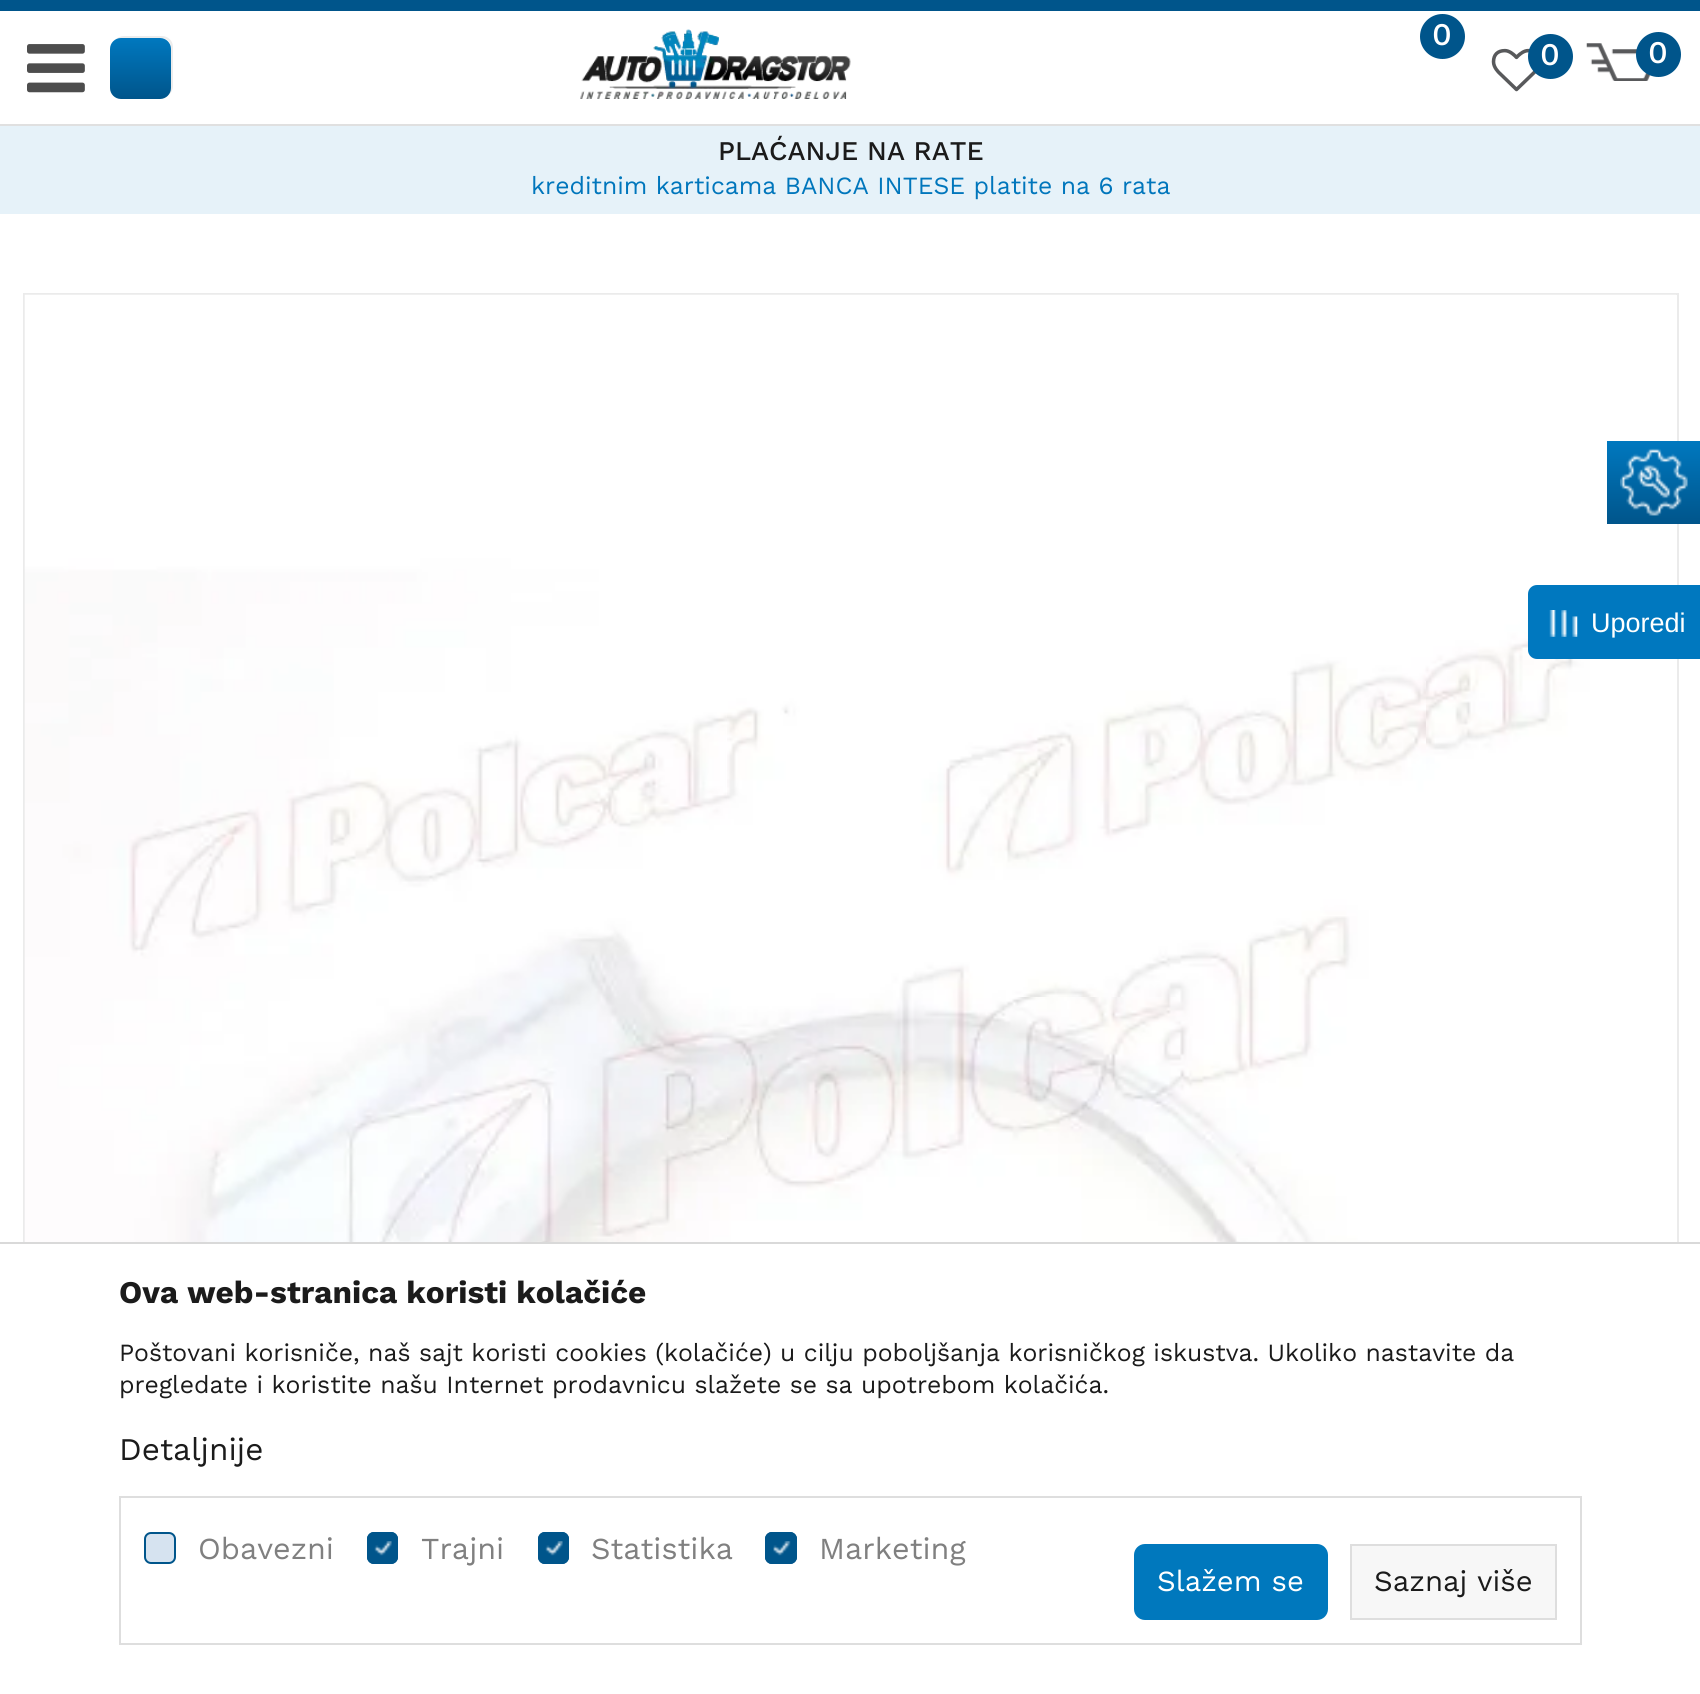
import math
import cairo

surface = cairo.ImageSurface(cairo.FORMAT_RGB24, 1700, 1694)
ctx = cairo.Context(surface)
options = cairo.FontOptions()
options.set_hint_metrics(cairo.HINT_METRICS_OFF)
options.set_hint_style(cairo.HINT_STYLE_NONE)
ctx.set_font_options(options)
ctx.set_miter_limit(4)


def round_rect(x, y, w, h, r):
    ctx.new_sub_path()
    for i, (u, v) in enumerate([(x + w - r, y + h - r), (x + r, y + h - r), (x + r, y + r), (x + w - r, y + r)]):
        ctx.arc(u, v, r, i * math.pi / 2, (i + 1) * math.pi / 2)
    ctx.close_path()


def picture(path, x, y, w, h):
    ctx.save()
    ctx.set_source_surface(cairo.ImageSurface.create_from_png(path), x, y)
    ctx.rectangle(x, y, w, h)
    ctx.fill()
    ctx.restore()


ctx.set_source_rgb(1, 1, 1)
ctx.paint()
ctx.set_source_rgb(0, 0.333, 0.545)
ctx.rectangle(0, 0, 1700, 11)
ctx.fill()
ctx.set_source_rgb(0.878, 0.878, 0.878)
ctx.rectangle(0, 124, 1700, 2)
ctx.fill()
picture("img1.png", 27, 44, 58, 49)
ctx.set_source_rgb(0.973, 0.973, 0.973)
round_rect(114, 37, 58, 59, 10)
ctx.fill_preserve()
ctx.set_source_rgb(0.925, 0.925, 0.925)
ctx.stroke()
gradient = cairo.LinearGradient(141, 99, 141, 38)
gradient.add_color_stop_rgba(0, 0, 0.333, 0.545, 1)
gradient.add_color_stop_rgba(1, 0, 0.471, 0.749, 1)
ctx.set_source(gradient)
round_rect(110, 38, 61, 61, 11)
ctx.fill()
picture("img2.png", 580, 29, 271, 70)
ctx.set_source_rgb(0, 0.333, 0.545)
ctx.arc(1442.5, 36.5, 22.5, 0, 2 * math.pi)
ctx.fill()
ctx.select_font_face("Work Sans Medium")
ctx.set_font_size(31.5)
ctx.set_source_rgb(1, 1, 1)
ctx.move_to(1432, 45)
ctx.show_text("0")
picture("img3.png", 1491, 48, 45, 44)
ctx.set_source_rgb(0, 0.333, 0.545)
ctx.arc(1550.5, 56.5, 22.5, 0, 2 * math.pi)
ctx.fill()
ctx.set_source_rgb(1, 1, 1)
ctx.move_to(1540, 65)
ctx.show_text("0")
picture("img4.png", 1586, 43, 65, 38)
ctx.set_source_rgb(0, 0.333, 0.545)
ctx.arc(1658.5, 54.5, 22.5, 0, 2 * math.pi)
ctx.fill()
ctx.set_source_rgb(1, 1, 1)
ctx.move_to(1648, 63)
ctx.show_text("0")
ctx.set_source_rgb(0.902, 0.949, 0.976)
ctx.rectangle(0, 126, 1700, 88)
ctx.fill()
ctx.set_font_size(27)
ctx.set_source_rgb(0.106, 0.106, 0.106)
ctx.move_to(718, 160)
ctx.show_text("PLAĆANJE NA RATE")
ctx.select_font_face("Work Sans")
ctx.set_font_size(24.75)
ctx.set_source_rgb(0, 0.463, 0.737)
ctx.move_to(531, 194)
ctx.show_text("kreditnim karticama BANCA INTESE platite na 6 rata")
ctx.rectangle(24, 294, 1654, 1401)
ctx.set_source_rgb(0.918, 0.918, 0.918)
ctx.stroke()
picture("img5.png", 24, 294, 1652, 948)
picture("img6.png", 726, 681, 701, 561)
gradient = cairo.LinearGradient(1654, 524, 1654, 441)
gradient.add_color_stop_rgba(0, 0, 0.333, 0.545, 1)
gradient.add_color_stop_rgba(1, 0, 0.471, 0.749, 1)
ctx.set_source(gradient)
ctx.rectangle(1607, 441, 93, 83)
ctx.fill()
picture("img7.png", 1620, 448, 68, 68)
ctx.set_source_rgb(0, 0.471, 0.749)
ctx.new_path()
ctx.move_to(1537, 585)
ctx.line_to(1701, 585)
ctx.line_to(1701, 659)
ctx.line_to(1537, 659)
ctx.curve_to(1532, 659, 1528, 655, 1528, 650)
ctx.line_to(1528, 594)
ctx.curve_to(1528, 589, 1532, 585, 1537, 585)
ctx.close_path()
ctx.fill()
picture("img8.png", 1549, 610, 29, 27)
ctx.select_font_face("Liberation Sans")
ctx.set_font_size(27)
ctx.set_source_rgb(1, 1, 1)
ctx.move_to(1591, 632)
ctx.show_text("Uporedi")
ctx.rectangle(-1, 1243, 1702, 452)
ctx.set_source_rgb(0.851, 0.851, 0.851)
ctx.stroke()
ctx.set_source_rgb(1, 1, 1)
ctx.rectangle(23, 1244, 1656, 450)
ctx.fill()
ctx.select_font_face("Work Sans", cairo.FONT_SLANT_NORMAL, cairo.FONT_WEIGHT_BOLD)
ctx.set_font_size(31.5)
ctx.set_source_rgb(0.106, 0.106, 0.106)
ctx.move_to(119, 1303)
ctx.show_text("Ova web-stranica koristi kolačiće")
ctx.select_font_face("Work Sans")
ctx.set_font_size(24.75)
ctx.move_to(119, 1361)
ctx.show_text("Poštovani korisniče, naš sajt koristi cookies (kolačiće) u cilju poboljšanja korisničkog iskustva. Ukoliko nastavite da")
ctx.move_to(119, 1393)
ctx.show_text("pregledate i koristite našu Internet prodavnicu slažete se sa upotrebom kolačića.")
ctx.set_font_size(31.5)
ctx.move_to(119, 1460)
ctx.show_text("Detaljnije")
ctx.rectangle(120, 1497, 1461, 147)
ctx.set_source_rgb(0.871, 0.871, 0.871)
ctx.stroke()
ctx.set_source_rgb(0.839, 0.89, 0.941)
round_rect(145, 1533, 30, 30, 6)
ctx.fill_preserve()
ctx.set_source_rgb(0, 0.333, 0.545)
ctx.stroke()
ctx.set_font_size(30.5)
ctx.set_source_rgb(0.502, 0.502, 0.502)
ctx.move_to(198, 1559)
ctx.show_text("Obavezni")
ctx.set_source_rgb(0, 0.333, 0.545)
round_rect(367, 1532, 31, 32, 7)
ctx.fill()
picture("img9.png", 374, 1541, 18, 15)
round_rect(368, 1533, 29, 30, 6)
ctx.stroke()
ctx.set_source_rgb(0.502, 0.502, 0.502)
ctx.move_to(421, 1559)
ctx.show_text("Trajni")
ctx.set_source_rgb(0, 0.333, 0.545)
round_rect(538, 1532, 31, 32, 7)
ctx.fill()
picture("img10.png", 545, 1541, 18, 15)
round_rect(539, 1533, 29, 30, 6)
ctx.stroke()
ctx.set_source_rgb(0.502, 0.502, 0.502)
ctx.move_to(591, 1559)
ctx.show_text("Statistika")
ctx.set_source_rgb(0, 0.333, 0.545)
round_rect(765, 1532, 32, 32, 7)
ctx.fill()
picture("img11.png", 773, 1541, 18, 15)
round_rect(766, 1533, 30, 30, 6)
ctx.stroke()
ctx.set_source_rgb(0.502, 0.502, 0.502)
ctx.move_to(819, 1559)
ctx.show_text("Marketing")
ctx.set_source_rgb(0, 0.471, 0.741)
round_rect(1134, 1544, 194, 76, 11)
ctx.fill()
ctx.set_font_size(29.25)
ctx.set_source_rgb(1, 1, 1)
ctx.move_to(1157, 1591)
ctx.show_text("Slažem se")
ctx.set_source_rgb(0.965, 0.965, 0.965)
ctx.rectangle(1351, 1545, 205, 74)
ctx.fill_preserve()
ctx.set_source_rgb(0.871, 0.871, 0.871)
ctx.stroke()
ctx.set_source_rgb(0.106, 0.106, 0.106)
ctx.move_to(1374, 1591)
ctx.show_text("Saznaj više")
surface.write_to_png("page.png")
